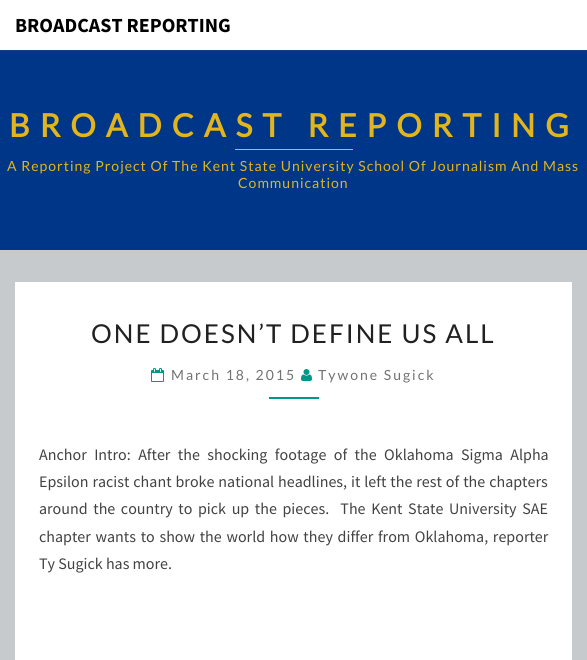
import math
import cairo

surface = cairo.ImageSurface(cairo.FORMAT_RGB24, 587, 660)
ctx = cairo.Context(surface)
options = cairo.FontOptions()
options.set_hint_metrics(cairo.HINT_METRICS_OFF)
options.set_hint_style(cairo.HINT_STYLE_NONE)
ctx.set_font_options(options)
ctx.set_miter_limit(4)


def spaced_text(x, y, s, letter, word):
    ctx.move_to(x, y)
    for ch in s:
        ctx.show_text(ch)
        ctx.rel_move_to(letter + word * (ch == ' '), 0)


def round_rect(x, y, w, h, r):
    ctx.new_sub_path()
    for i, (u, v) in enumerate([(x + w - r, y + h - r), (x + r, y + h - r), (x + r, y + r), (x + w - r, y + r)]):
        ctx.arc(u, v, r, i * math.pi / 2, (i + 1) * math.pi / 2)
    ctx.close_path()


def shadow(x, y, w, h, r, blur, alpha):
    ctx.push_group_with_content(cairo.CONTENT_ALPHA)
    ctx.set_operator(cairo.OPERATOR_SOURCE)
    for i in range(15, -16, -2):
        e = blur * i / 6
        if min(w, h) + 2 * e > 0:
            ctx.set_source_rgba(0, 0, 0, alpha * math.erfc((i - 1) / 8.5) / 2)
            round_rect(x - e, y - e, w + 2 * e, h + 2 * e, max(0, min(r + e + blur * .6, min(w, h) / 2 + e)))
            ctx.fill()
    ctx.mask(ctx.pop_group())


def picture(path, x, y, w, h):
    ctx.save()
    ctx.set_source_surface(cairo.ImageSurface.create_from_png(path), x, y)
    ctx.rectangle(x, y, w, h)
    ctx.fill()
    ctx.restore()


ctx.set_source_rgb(0.78, 0.792, 0.8)
ctx.paint()
ctx.set_source_rgb(0, 0.212, 0.529)
ctx.rectangle(0, 50, 587, 200)
ctx.fill()
ctx.set_source_rgb(0.392, 0.392, 0.392)
shadow(0, 1, 587, 50, 0, 0.5, 0.2)
ctx.set_source_rgb(1, 1, 1)
ctx.rectangle(0, 0, 587, 50)
ctx.fill()
ctx.select_font_face("Source Sans Pro", cairo.FONT_SLANT_NORMAL, cairo.FONT_WEIGHT_BOLD)
ctx.set_font_size(20)
ctx.set_source_rgb(0, 0, 0)
ctx.move_to(15, 32)
ctx.show_text("BROADCAST REPORTING")
ctx.select_font_face("Lato", cairo.FONT_SLANT_NORMAL, cairo.FONT_WEIGHT_BOLD)
ctx.set_font_size(32)
ctx.set_source_rgb(0.886, 0.706, 0.114)
spaced_text(9, 137, "BROADCAST REPORTING", 10, 0)
ctx.rectangle(235, 149, 118, 1)
ctx.fill()
ctx.select_font_face("Lato")
ctx.set_font_size(14)
spaced_text(7, 171, "A Reporting Project Of The Kent State University School Of Journalism And Mass", 1, 0)
spaced_text(238, 188, "Communication", 1, 0)
ctx.set_source_rgb(1, 1, 1)
ctx.rectangle(15, 282, 557, 378)
ctx.fill()
ctx.set_font_size(26)
ctx.set_source_rgb(0.129, 0.129, 0.129)
spaced_text(91, 343, "ONE DOESN’T DEFINE US ALL", 2, 0)
picture("img1.png", 151, 368, 13, 14)
ctx.set_font_size(14)
ctx.set_source_rgb(0.447, 0.447, 0.447)
spaced_text(171, 380, "March 18, 2015", 2, 0)
picture("img2.png", 301, 369, 11, 12)
spaced_text(318, 380, "Tywone Sugick", 2, 0)
ctx.set_source_rgb(0, 0.588, 0.533)
ctx.rectangle(269, 397, 50, 2)
ctx.fill()
ctx.select_font_face("Source Sans Pro")
ctx.set_font_size(16)
ctx.set_source_rgb(0.259, 0.259, 0.259)
spaced_text(39, 460, "Anchor Intro: After the shocking footage of the Oklahoma Sigma Alpha", 0, 4.25)
spaced_text(39, 487, "Epsilon racist chant broke national headlines, it left the rest of the chapters", 0, 0.75)
spaced_text(39, 514, "around the country to pick up the pieces.  The Kent State University SAE", 0, 2.4)
spaced_text(39, 542, "chapter wants to show the world how they differ from Oklahoma, reporter", 0, 1.5)
ctx.move_to(39, 569)
ctx.show_text("Ty Sugick has more.")
surface.write_to_png("page.png")
